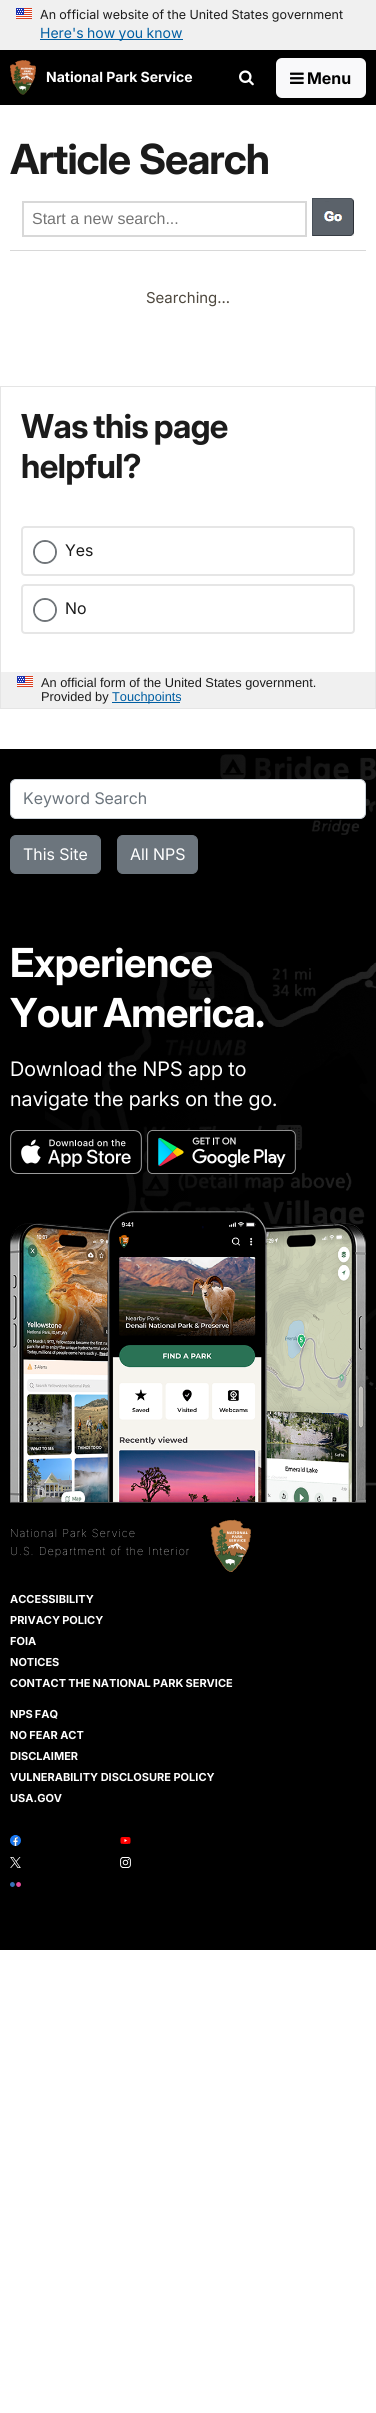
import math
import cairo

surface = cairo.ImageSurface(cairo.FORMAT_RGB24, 376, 2413)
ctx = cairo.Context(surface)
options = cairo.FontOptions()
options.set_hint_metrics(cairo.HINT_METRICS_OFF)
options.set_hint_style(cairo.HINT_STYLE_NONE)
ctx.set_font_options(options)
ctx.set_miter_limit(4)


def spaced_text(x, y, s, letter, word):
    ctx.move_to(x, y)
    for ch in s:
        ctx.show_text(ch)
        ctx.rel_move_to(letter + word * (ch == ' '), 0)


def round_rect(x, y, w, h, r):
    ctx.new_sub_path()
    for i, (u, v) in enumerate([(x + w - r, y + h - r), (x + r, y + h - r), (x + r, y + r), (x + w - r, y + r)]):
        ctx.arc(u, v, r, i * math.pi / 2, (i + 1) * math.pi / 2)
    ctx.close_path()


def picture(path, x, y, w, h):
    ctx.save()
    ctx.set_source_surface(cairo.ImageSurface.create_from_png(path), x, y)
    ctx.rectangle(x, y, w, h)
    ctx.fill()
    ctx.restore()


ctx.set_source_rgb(1, 1, 1)
ctx.paint()
ctx.set_source_rgb(0.941, 0.941, 0.941)
ctx.rectangle(0, 0, 376, 50)
ctx.fill()
picture("img1.png", 16, 8, 16, 11)
ctx.select_font_face("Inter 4")
ctx.set_font_size(12.5)
ctx.set_source_rgb(0.106, 0.106, 0.106)
spaced_text(40, 19, "An official website of the United States government", 0, -0.25)
ctx.set_source_rgb(0, 0.369, 0.635)
ctx.rectangle(40, 39, 143, 1)
ctx.fill()
ctx.set_font_size(14)
spaced_text(40, 38, "Here's how you know", 0, -0.5)
ctx.set_source_rgb(0, 0, 0)
ctx.rectangle(0, 50, 376, 55)
ctx.fill()
picture("img2.png", 10, 60, 26, 35)
ctx.select_font_face("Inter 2", cairo.FONT_SLANT_NORMAL, cairo.FONT_WEIGHT_BOLD)
ctx.set_source_rgb(1, 1, 1)
ctx.move_to(46, 82)
ctx.show_text("National Park Service")
picture("img3.png", 239, 70, 15, 16)
ctx.set_source_rgb(0.973, 0.976, 0.98)
round_rect(277, 59, 88, 38, 5)
ctx.fill_preserve()
ctx.stroke()
picture("img4.png", 290, 72, 14, 12)
ctx.select_font_face("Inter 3", cairo.FONT_SLANT_NORMAL, cairo.FONT_WEIGHT_BOLD)
ctx.set_font_size(16)
ctx.set_source_rgb(0, 0, 0)
ctx.move_to(307, 84)
ctx.show_text("Menu")
ctx.select_font_face("Inter", cairo.FONT_SLANT_NORMAL, cairo.FONT_WEIGHT_BOLD)
ctx.set_font_size(41.5)
ctx.set_source_rgb(0.106, 0.106, 0.106)
spaced_text(10, 174, "Article Search", -1, 1)
ctx.set_source_rgb(0.847, 0.847, 0.847)
ctx.rectangle(10, 250, 356, 1)
ctx.fill()
ctx.rectangle(23, 202, 283, 34)
ctx.stroke()
ctx.select_font_face("Liberation Sans")
ctx.set_font_size(16)
ctx.set_source_rgb(0.459, 0.459, 0.459)
ctx.move_to(32, 224)
ctx.show_text("Start a new search...")
picture("img5.png", 312, 198, 42, 38)
ctx.select_font_face("Inter")
ctx.set_font_size(15)
ctx.set_source_rgb(0.306, 0.282, 0.243)
ctx.move_to(146, 303)
ctx.show_text("Searching...")
ctx.rectangle(0.5, 386.5, 375, 322)
ctx.set_source_rgb(0.898, 0.898, 0.898)
ctx.set_line_width(1)
ctx.stroke()
ctx.select_font_face("Inter", cairo.FONT_SLANT_NORMAL, cairo.FONT_WEIGHT_BOLD)
ctx.set_font_size(33)
ctx.set_source_rgb(0.106, 0.106, 0.106)
spaced_text(21, 438, "Was this page", -0.5, -1)
spaced_text(21, 478, "helpful?", -0.5, 0)
round_rect(22, 527, 332, 48, 3)
ctx.set_source_rgb(0.902, 0.902, 0.902)
ctx.set_line_width(2)
ctx.stroke()
ctx.arc(45, 552, 11, 0, 2 * math.pi)
ctx.set_source_rgb(0.443, 0.463, 0.478)
ctx.stroke()
ctx.set_source_rgb(1, 1, 1)
ctx.arc(45, 552, 10, 0, 2 * math.pi)
ctx.fill()
ctx.select_font_face("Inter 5")
ctx.set_font_size(16)
ctx.set_source_rgb(0.106, 0.106, 0.106)
ctx.move_to(65, 556)
ctx.show_text("Yes")
round_rect(22, 585, 332, 48, 3)
ctx.set_source_rgb(0.902, 0.902, 0.902)
ctx.stroke()
ctx.arc(45, 610, 11, 0, 2 * math.pi)
ctx.set_source_rgb(0.443, 0.463, 0.478)
ctx.stroke()
ctx.set_source_rgb(1, 1, 1)
ctx.arc(45, 610, 10, 0, 2 * math.pi)
ctx.fill()
ctx.set_source_rgb(0.106, 0.106, 0.106)
ctx.move_to(65, 614)
ctx.show_text("No")
ctx.set_source_rgb(0.941, 0.941, 0.941)
ctx.rectangle(1, 672, 374, 36)
ctx.fill()
picture("img1.png", 17, 676, 16, 11)
ctx.select_font_face("Liberation Sans")
ctx.set_font_size(12.8)
ctx.set_source_rgb(0.106, 0.106, 0.106)
ctx.move_to(41, 687)
ctx.show_text("An official form of the United States government.")
ctx.move_to(41, 701)
ctx.show_text("Provided by")
ctx.set_source_rgb(0, 0.369, 0.635)
ctx.rectangle(112, 702, 68, 1)
ctx.fill()
ctx.move_to(112, 701)
ctx.show_text("Touchpoints")
ctx.set_source_rgb(0, 0, 0)
ctx.rectangle(0, 749, 376, 1201)
ctx.fill()
picture("img6.png", 45, 754, 331, 732)
ctx.set_source_rgb(1, 1, 1)
round_rect(10.5, 779.5, 355, 39, 5.5)
ctx.fill_preserve()
ctx.set_source_rgb(0.808, 0.831, 0.855)
ctx.set_line_width(1)
ctx.stroke()
ctx.select_font_face("Inter 2")
ctx.set_font_size(16)
ctx.set_source_rgb(0.424, 0.459, 0.49)
ctx.move_to(23, 804)
ctx.show_text("Keyword Search")
round_rect(10.5, 835.5, 90, 38, 5.5)
ctx.fill_preserve()
ctx.stroke()
ctx.set_source_rgb(1, 1, 1)
ctx.move_to(23, 860)
ctx.show_text("This Site")
ctx.set_source_rgb(0.424, 0.459, 0.49)
round_rect(117.5, 835.5, 80, 38, 5.5)
ctx.fill_preserve()
ctx.stroke()
ctx.set_source_rgb(1, 1, 1)
ctx.move_to(130, 860)
ctx.show_text("All NPS")
ctx.select_font_face("Inter", cairo.FONT_SLANT_NORMAL, cairo.FONT_WEIGHT_BOLD)
ctx.set_font_size(40)
spaced_text(10, 977, "Experience", -0.5, 0)
spaced_text(10, 1027, "Your America.", -0.5, -2)
ctx.select_font_face("Inter 3")
ctx.set_font_size(20)
ctx.move_to(10, 1076)
ctx.show_text("Download the NPS app to")
ctx.move_to(10, 1106)
ctx.show_text("navigate the parks on the go.")
picture("img7.png", 10, 1130, 132, 44)
picture("img8.png", 147, 1130, 149, 44)
picture("img9.png", 10, 1211, 356, 291)
ctx.set_source_rgb(0.271, 0.271, 0.271)
ctx.rectangle(10, 1502, 356, 1)
ctx.fill()
ctx.select_font_face("Inter Thin")
ctx.set_font_size(11)
ctx.set_source_rgb(1, 1, 1)
spaced_text(10, 1537, "National Park Service", 1, 0)
spaced_text(10, 1555, "U.S. Department of the Interior", 1, 0)
picture("img10.png", 210, 1519, 41, 53)
ctx.select_font_face("Inter 2", cairo.FONT_SLANT_NORMAL, cairo.FONT_WEIGHT_BOLD)
ctx.move_to(10, 1603)
ctx.show_text("ACCESSIBILITY")
spaced_text(10, 1624, "PRIVACY POLICY", 0, -0.5)
ctx.move_to(10, 1645)
ctx.show_text("FOIA")
ctx.move_to(10, 1666)
ctx.show_text("NOTICES")
spaced_text(10, 1687, "CONTACT THE NATIONAL PARK SERVICE", 0, -0.5)
spaced_text(10, 1718, "NPS FAQ", 0, -0.5)
spaced_text(10, 1739, "NO FEAR ACT", 0, -0.25)
ctx.move_to(10, 1760)
ctx.show_text("DISCLAIMER")
ctx.move_to(10, 1781)
ctx.show_text("VULNERABILITY DISCLOSURE POLICY")
ctx.move_to(10, 1802)
ctx.show_text("USA.GOV")
picture("img11.png", 10, 1835, 11, 11)
picture("img12.png", 120, 1837, 11, 7)
picture("img13.png", 10, 1857, 11, 11)
picture("img14.png", 120, 1857, 11, 11)
picture("img15.png", 10, 1882, 11, 5)
surface.write_to_png("page.png")
